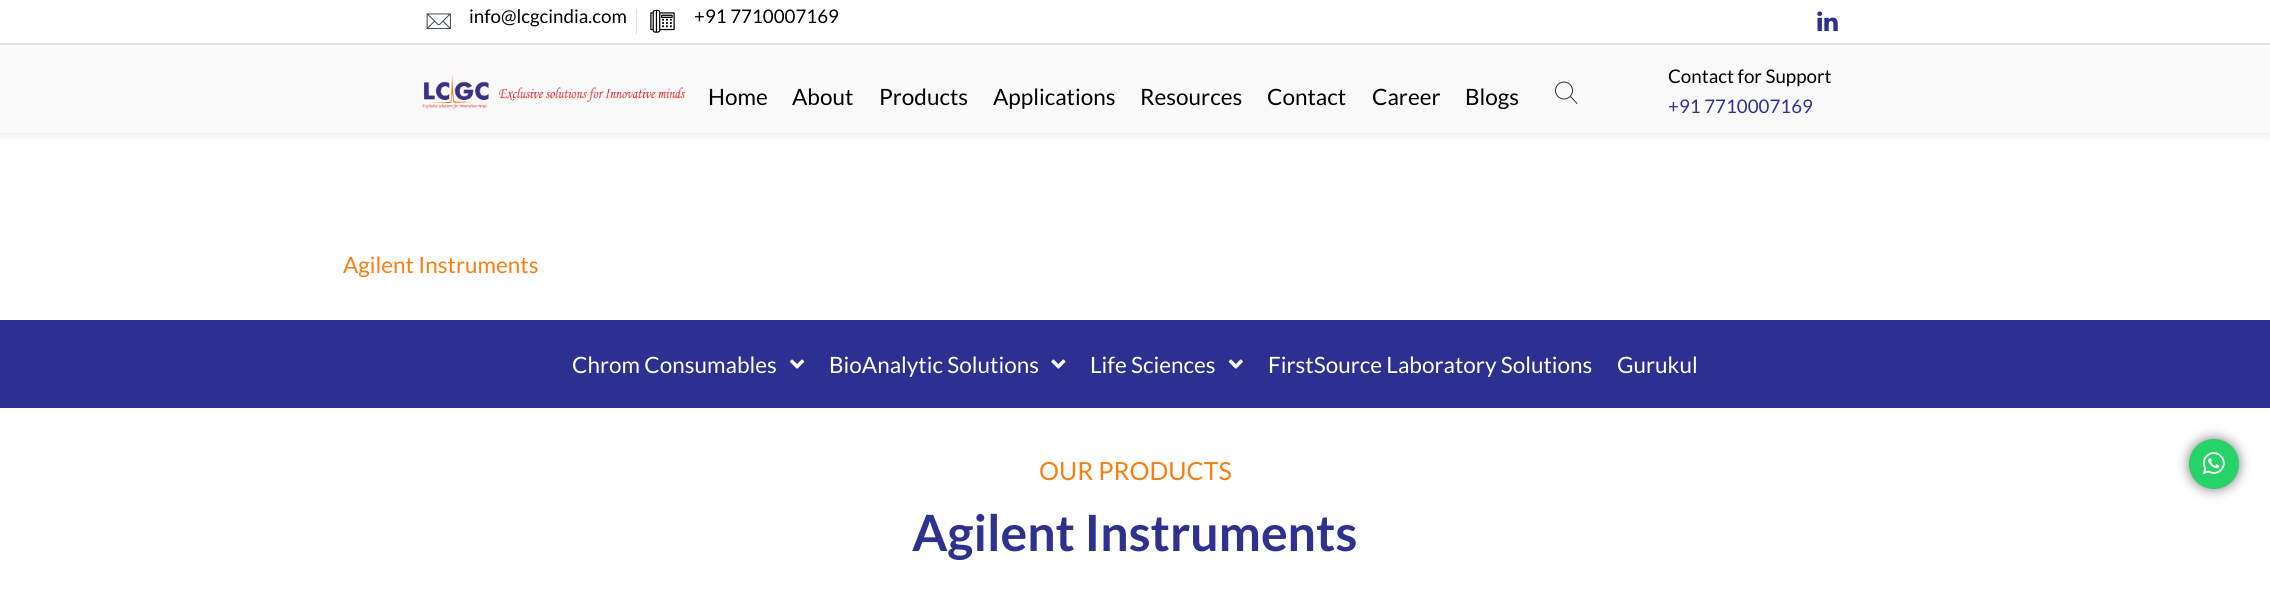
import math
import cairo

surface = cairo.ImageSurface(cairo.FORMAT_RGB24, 2270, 615)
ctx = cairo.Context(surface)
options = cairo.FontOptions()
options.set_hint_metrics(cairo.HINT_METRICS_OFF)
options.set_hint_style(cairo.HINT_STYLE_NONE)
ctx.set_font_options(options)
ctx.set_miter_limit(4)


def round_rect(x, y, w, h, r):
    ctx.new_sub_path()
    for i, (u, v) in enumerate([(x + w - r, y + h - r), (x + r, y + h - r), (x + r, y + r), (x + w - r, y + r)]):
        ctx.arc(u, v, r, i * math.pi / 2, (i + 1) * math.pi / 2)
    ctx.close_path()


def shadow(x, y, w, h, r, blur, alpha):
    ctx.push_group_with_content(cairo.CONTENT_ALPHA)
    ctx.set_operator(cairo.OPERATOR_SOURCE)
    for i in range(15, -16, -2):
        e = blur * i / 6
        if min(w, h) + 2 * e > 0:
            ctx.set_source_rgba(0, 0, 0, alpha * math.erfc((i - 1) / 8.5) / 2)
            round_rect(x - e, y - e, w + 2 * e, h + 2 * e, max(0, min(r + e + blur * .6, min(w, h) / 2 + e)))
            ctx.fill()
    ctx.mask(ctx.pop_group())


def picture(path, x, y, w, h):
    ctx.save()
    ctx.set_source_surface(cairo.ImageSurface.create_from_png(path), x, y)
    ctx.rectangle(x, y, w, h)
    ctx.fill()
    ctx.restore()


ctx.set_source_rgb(1, 1, 1)
ctx.paint()
ctx.set_source_rgb(0.894, 0.894, 0.894)
ctx.rectangle(0, 43, 2270, 2)
ctx.fill()
picture("img1.png", 426, 13, 25, 16)
ctx.select_font_face("Lato")
ctx.set_font_size(18.75)
ctx.set_source_rgb(0, 0, 0)
ctx.move_to(469, 23)
ctx.show_text("info@lcgcindia.com")
ctx.set_source_rgb(0.867, 0.867, 0.867)
ctx.rectangle(636, 9, 1, 25)
ctx.fill()
picture("img2.png", 650, 9, 25, 24)
ctx.set_source_rgb(0, 0, 0)
ctx.move_to(694, 23)
ctx.show_text("+91 7710007169")
picture("img3.png", 1817, 11, 21, 21)
ctx.set_source_rgb(0, 0, 0)
shadow(0, 49, 2270, 87, 0, 4, 0.07)
ctx.set_source_rgb(0.98, 0.98, 0.98)
ctx.rectangle(0, 45, 2270, 88)
ctx.fill()
picture("img4.png", 422, 75, 263, 34)
ctx.set_font_size(22.5)
ctx.set_source_rgb(0, 0, 0)
ctx.move_to(708, 105)
ctx.show_text("Home")
ctx.move_to(792, 105)
ctx.show_text("About")
ctx.move_to(879, 105)
ctx.show_text("Products")
ctx.move_to(993, 105)
ctx.show_text("Applications")
ctx.move_to(1140, 105)
ctx.show_text("Resources")
ctx.move_to(1267, 105)
ctx.show_text("Contact")
ctx.move_to(1372, 105)
ctx.show_text("Career")
ctx.move_to(1465, 105)
ctx.show_text("Blogs")
ctx.new_path()
ctx.arc(1564, 90.5, 8.5, 0, 2 * math.pi)
ctx.set_source_rgb(0.137, 0.122, 0.125)
ctx.set_line_width(0.9)
ctx.stroke()
ctx.new_path()
ctx.move_to(1577, 103.5)
ctx.line_to(1570.5, 96.5)
ctx.set_line_cap(cairo.LINE_CAP_ROUND)
ctx.set_line_join(cairo.LINE_JOIN_ROUND)
ctx.stroke()
ctx.set_font_size(18.75)
ctx.set_source_rgb(0, 0, 0)
ctx.move_to(1668, 83)
ctx.show_text("Contact for Support")
ctx.set_source_rgb(0.18, 0.192, 0.557)
ctx.move_to(1668, 113)
ctx.show_text("+91 7710007169")
ctx.set_font_size(22.5)
ctx.set_source_rgb(0.984, 0.494, 0.063)
ctx.move_to(343, 273)
ctx.show_text("Agilent Instruments")
ctx.set_source_rgb(0.176, 0.188, 0.569)
ctx.rectangle(0, 320, 2270, 88)
ctx.fill()
ctx.set_source_rgb(1, 1, 1)
ctx.move_to(572, 373)
ctx.show_text("Chrom Consumables")
picture("img5.png", 790, 359, 15, 10)
ctx.move_to(829, 373)
ctx.show_text("BioAnalytic Solutions")
picture("img6.png", 1051, 359, 15, 10)
ctx.move_to(1090, 373)
ctx.show_text("Life Sciences")
picture("img7.png", 1228, 359, 15, 10)
ctx.move_to(1268, 373)
ctx.show_text("FirstSource Laboratory Solutions")
ctx.move_to(1617, 373)
ctx.show_text("Gurukul")
ctx.set_font_size(25)
ctx.set_source_rgb(0.984, 0.494, 0.063)
ctx.move_to(1039, 480)
ctx.show_text("OUR PRODUCTS")
ctx.select_font_face("Lato", cairo.FONT_SLANT_NORMAL, cairo.FONT_WEIGHT_BOLD)
ctx.set_font_size(50)
ctx.set_source_rgb(0.18, 0.192, 0.557)
ctx.move_to(912, 551)
ctx.show_text("Agilent Instruments")
ctx.set_source_rgb(0, 0, 0)
shadow(2189, 439, 50, 50, 25, 6, 0.5)
ctx.set_source_rgb(0.145, 0.827, 0.4)
ctx.arc(2214, 464, 25, 0, 2 * math.pi)
ctx.fill()
picture("img8.png", 2202, 452, 23, 22)
surface.write_to_png("page.png")
